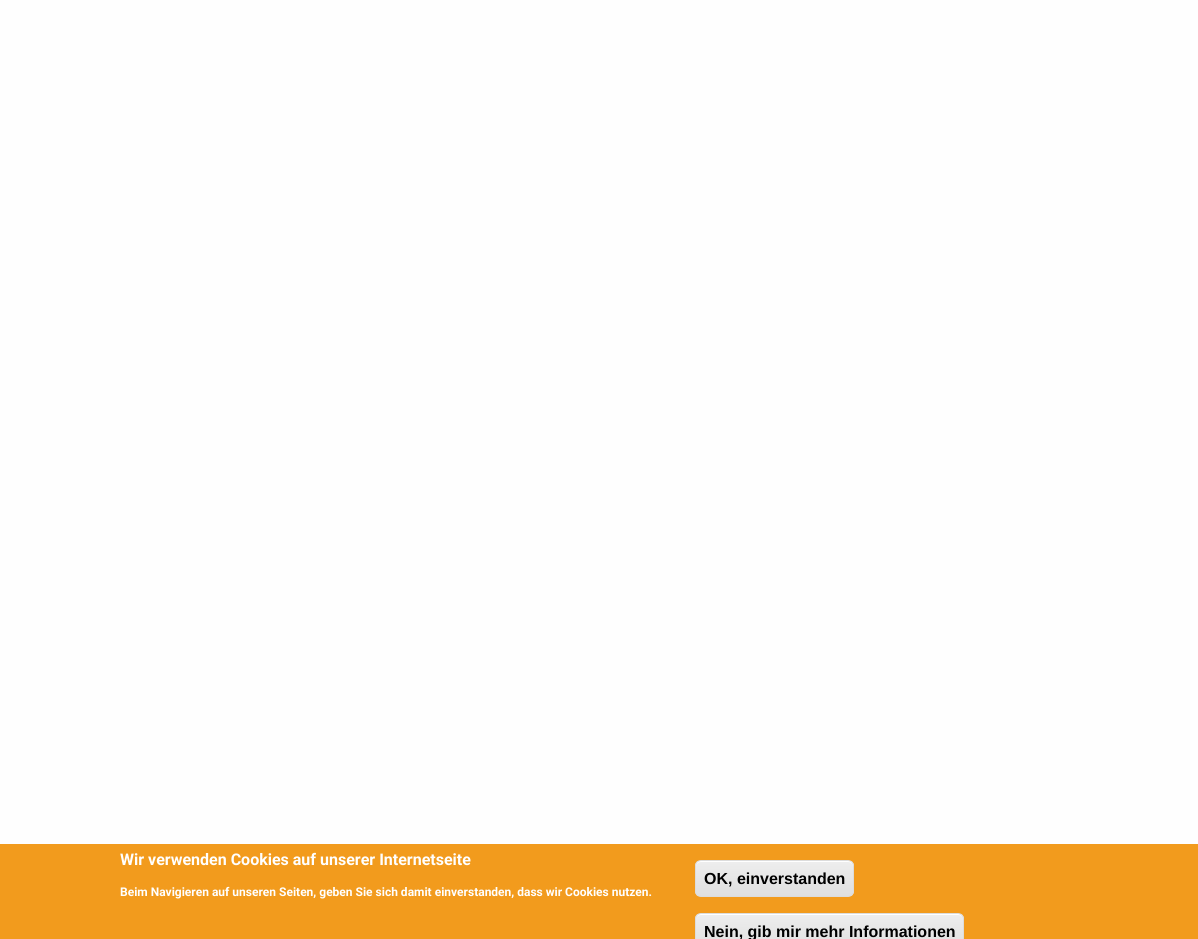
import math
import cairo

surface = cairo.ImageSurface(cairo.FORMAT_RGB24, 1198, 939)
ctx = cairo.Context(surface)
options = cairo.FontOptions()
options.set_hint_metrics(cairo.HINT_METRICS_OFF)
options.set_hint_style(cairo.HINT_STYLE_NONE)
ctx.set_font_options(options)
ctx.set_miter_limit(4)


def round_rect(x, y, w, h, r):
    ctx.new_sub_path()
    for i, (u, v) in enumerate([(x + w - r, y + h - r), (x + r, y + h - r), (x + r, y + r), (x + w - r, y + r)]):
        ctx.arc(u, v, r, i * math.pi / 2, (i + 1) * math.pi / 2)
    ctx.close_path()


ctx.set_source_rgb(0.996, 0.996, 0.996)
ctx.paint()
ctx.set_source_rgb(0.949, 0.608, 0.114)
ctx.rectangle(0, 844, 1198, 95)
ctx.fill()
ctx.select_font_face("Roboto", cairo.FONT_SLANT_NORMAL, cairo.FONT_WEIGHT_BOLD)
ctx.set_font_size(16)
ctx.set_source_rgb(1, 1, 1)
ctx.move_to(120, 865)
ctx.show_text("Wir verwenden Cookies auf unserer Internetseite")
ctx.set_font_size(12)
ctx.move_to(120, 896)
ctx.show_text("Beim Navigieren auf unseren Seiten, geben Sie sich damit einverstanden, dass wir Cookies nutzen.")
ctx.save()
round_rect(695, 860, 159, 37, 6)
ctx.clip()
gradient = cairo.LinearGradient(775, 861, 775, 896)
gradient.add_color_stop_rgba(0.05, 0.929, 0.929, 0.929, 1)
gradient.add_color_stop_rgba(1, 0.875, 0.875, 0.875, 1)
ctx.set_source(gradient)
ctx.rectangle(695, 861, 159, 35)
ctx.fill()
ctx.restore()
ctx.new_path()
ctx.move_to(701, 862)
ctx.line_to(848, 862)
ctx.curve_to(851, 862, 853, 864, 853, 867)
ctx.line_to(853, 866)
ctx.curve_to(853, 863, 851, 861, 848, 861)
ctx.line_to(701, 861)
ctx.curve_to(698, 861, 696, 863, 696, 866)
ctx.line_to(696, 867)
ctx.curve_to(696, 864, 698, 862, 701, 862)
ctx.close_path()
ctx.fill()
round_rect(695.5, 860.5, 158, 36, 5.5)
ctx.set_source_rgb(0.863, 0.863, 0.863)
ctx.set_line_width(1)
ctx.stroke()
ctx.select_font_face("Liberation Sans", cairo.FONT_SLANT_NORMAL, cairo.FONT_WEIGHT_BOLD)
ctx.set_font_size(16)
ctx.set_source_rgb(0, 0, 0)
ctx.move_to(704, 884)
ctx.show_text("OK, einverstanden")
ctx.save()
round_rect(695, 913, 269, 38, 6)
ctx.clip()
gradient = cairo.LinearGradient(830, 914, 830, 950)
gradient.add_color_stop_rgba(0.05, 0.929, 0.929, 0.929, 1)
gradient.add_color_stop_rgba(1, 0.875, 0.875, 0.875, 1)
ctx.set_source(gradient)
ctx.rectangle(695, 914, 269, 25)
ctx.fill()
ctx.restore()
ctx.set_source_rgb(1, 1, 1)
ctx.new_path()
ctx.move_to(701, 915)
ctx.line_to(958, 915)
ctx.curve_to(961, 915, 963, 917, 963, 920)
ctx.curve_to(963, 917, 961, 914, 958, 914)
ctx.line_to(701, 914)
ctx.curve_to(698, 914, 696, 917, 696, 920)
ctx.curve_to(696, 917, 698, 915, 701, 915)
ctx.close_path()
ctx.fill()
round_rect(695.5, 913.5, 268, 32, 5.5)
ctx.set_source_rgb(0.863, 0.863, 0.863)
ctx.stroke()
ctx.set_source_rgb(0, 0, 0)
ctx.move_to(704, 937)
ctx.show_text("Nein, gib mir mehr Informationen")
surface.write_to_png("page.png")
